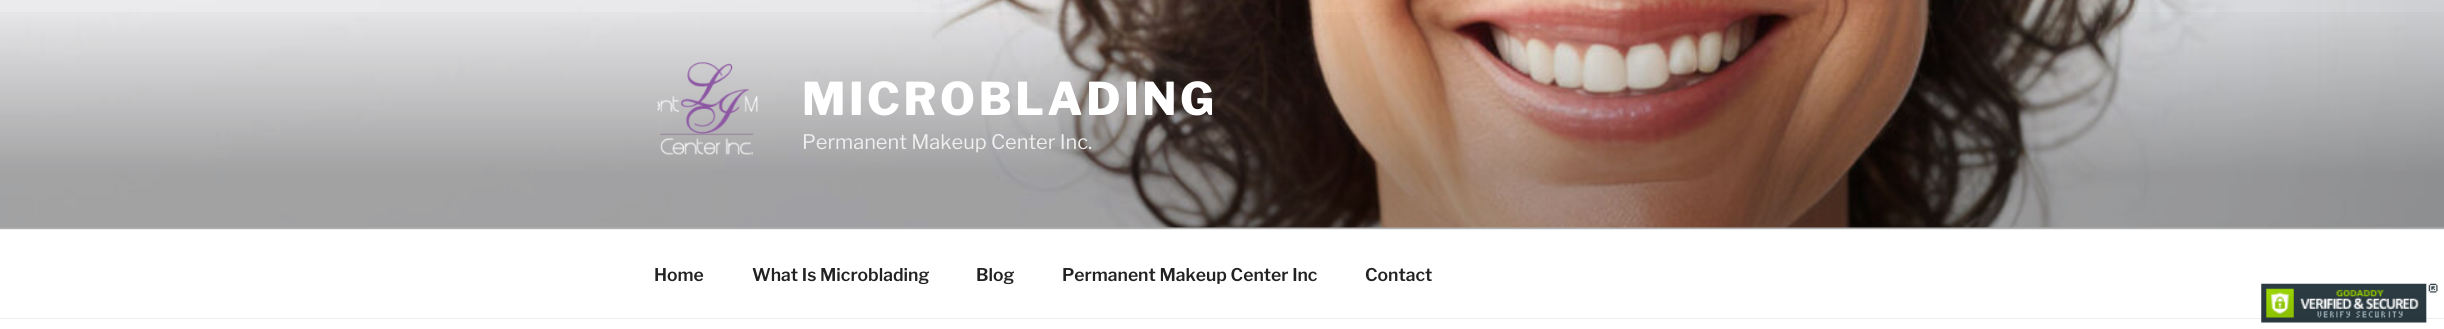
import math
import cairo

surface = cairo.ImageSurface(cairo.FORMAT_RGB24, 2444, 329)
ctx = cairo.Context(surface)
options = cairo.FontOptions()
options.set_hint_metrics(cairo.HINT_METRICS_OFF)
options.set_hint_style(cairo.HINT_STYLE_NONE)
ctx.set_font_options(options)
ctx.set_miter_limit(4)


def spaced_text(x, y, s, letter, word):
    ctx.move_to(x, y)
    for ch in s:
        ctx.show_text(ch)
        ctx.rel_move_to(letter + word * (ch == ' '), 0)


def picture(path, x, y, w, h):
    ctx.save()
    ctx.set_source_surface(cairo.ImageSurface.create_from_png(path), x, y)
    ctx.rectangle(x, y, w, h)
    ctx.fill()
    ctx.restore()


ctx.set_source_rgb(1, 1, 1)
ctx.paint()
ctx.set_source_rgb(0.98, 0.98, 0.98)
ctx.rectangle(0, 227, 2444, 2)
ctx.fill()
picture("img1.png", 0, 0, 2444, 228)
gradient = cairo.LinearGradient(1223, 0, 1223, 229)
gradient.add_color_stop_rgba(0, 0, 0, 0, 0)
gradient.add_color_stop_rgba(0.75, 0, 0, 0, 0.3)
gradient.add_color_stop_rgba(1, 0, 0, 0, 0.3)
ctx.set_source(gradient)
ctx.rectangle(0, 12, 2444, 217)
ctx.fill()
picture("img2.png", 657, 62, 101, 93)
ctx.select_font_face("Libre Franklin Thin")
ctx.set_font_size(45)
ctx.set_source_rgb(1, 1, 1)
spaced_text(802, 115, "MICROBLADING", 3.6, 0)
ctx.select_font_face("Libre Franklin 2 Thin")
ctx.set_font_size(20)
ctx.set_source_rgb(0.933, 0.933, 0.933)
ctx.move_to(802, 149)
ctx.show_text("Permanent Makeup Center Inc.")
ctx.rectangle(0, 229, 2444, 1)
ctx.fill()
ctx.rectangle(0, 318, 2444, 1)
ctx.fill()
ctx.select_font_face("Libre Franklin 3 Thin")
ctx.set_font_size(17.5)
ctx.set_source_rgb(0.133, 0.133, 0.133)
ctx.move_to(654, 281)
ctx.show_text("Home")
ctx.move_to(752, 281)
ctx.show_text("What Is Microblading")
ctx.move_to(976, 281)
ctx.show_text("Blog")
ctx.move_to(1062, 281)
ctx.show_text("Permanent Makeup Center Inc")
ctx.move_to(1365, 281)
ctx.show_text("Contact")
picture("img3.png", 2261, 283, 177, 40)
surface.write_to_png("page.png")
